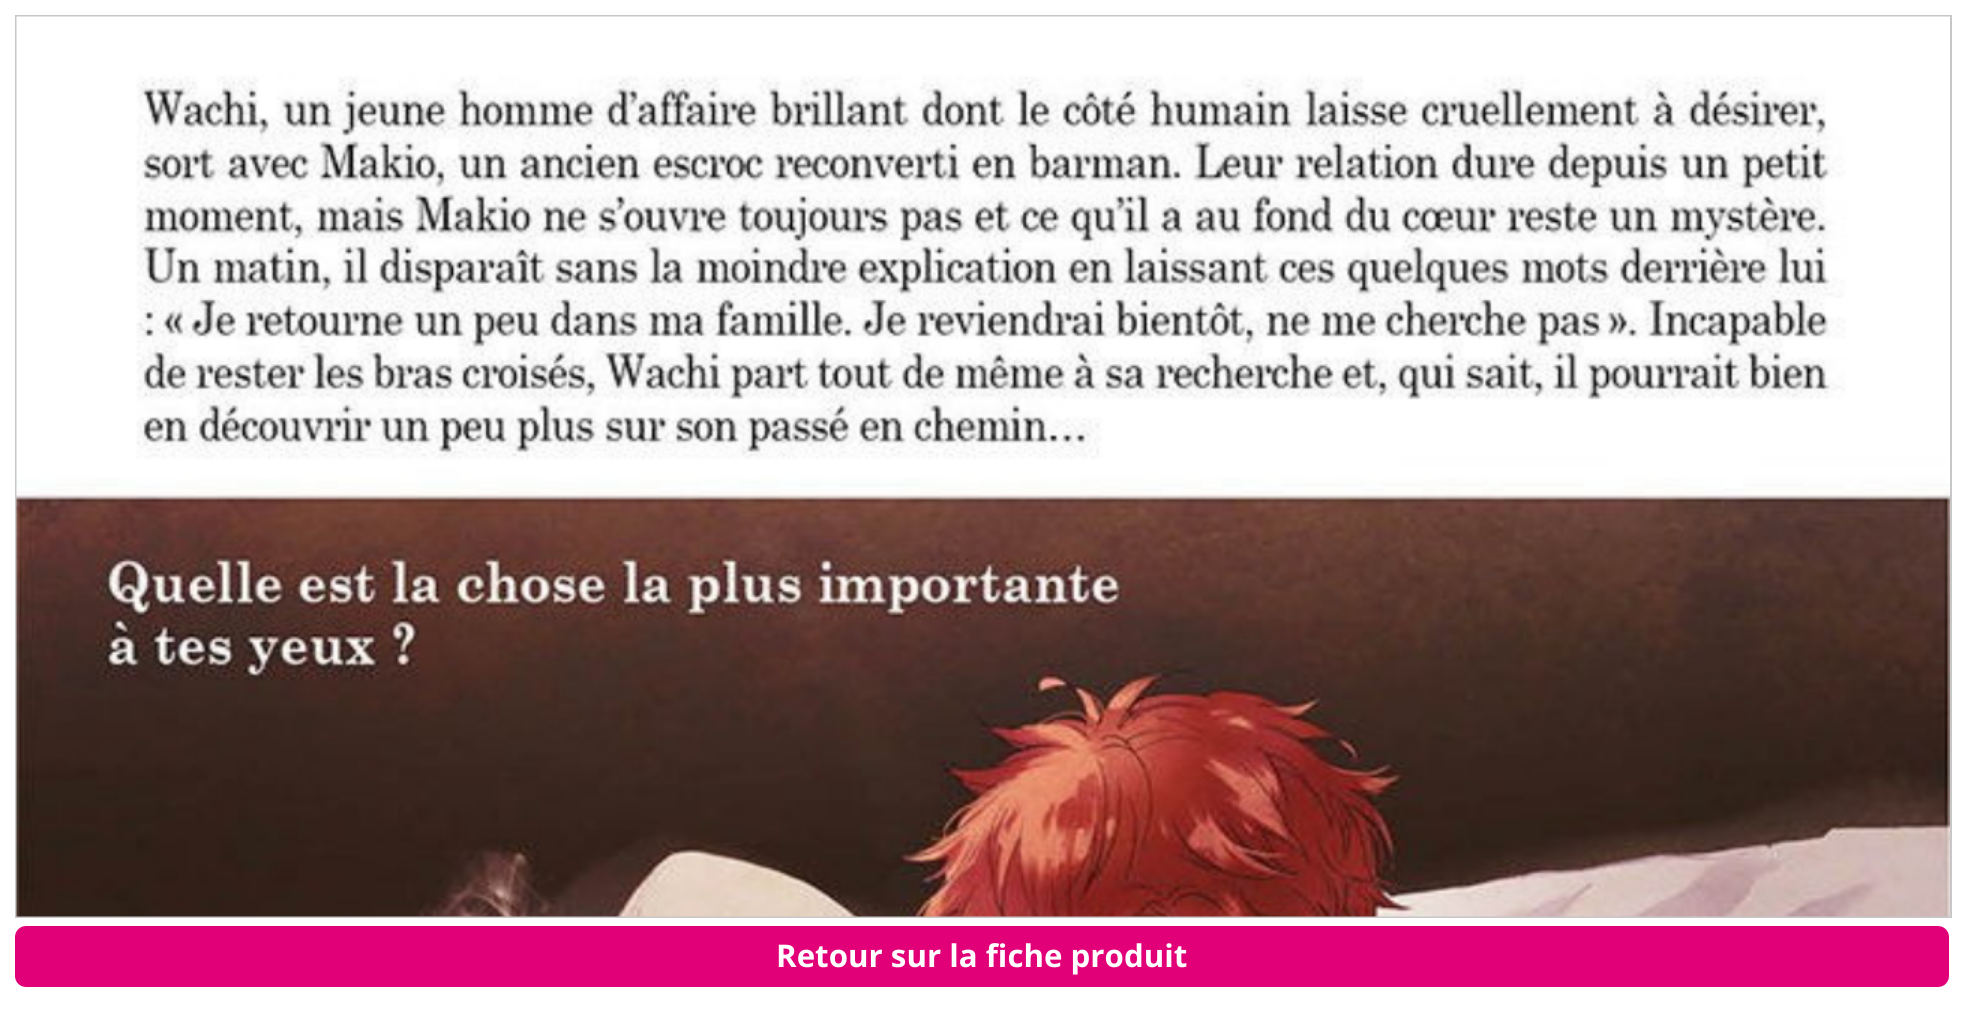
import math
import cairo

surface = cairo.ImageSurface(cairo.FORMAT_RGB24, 1963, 1034)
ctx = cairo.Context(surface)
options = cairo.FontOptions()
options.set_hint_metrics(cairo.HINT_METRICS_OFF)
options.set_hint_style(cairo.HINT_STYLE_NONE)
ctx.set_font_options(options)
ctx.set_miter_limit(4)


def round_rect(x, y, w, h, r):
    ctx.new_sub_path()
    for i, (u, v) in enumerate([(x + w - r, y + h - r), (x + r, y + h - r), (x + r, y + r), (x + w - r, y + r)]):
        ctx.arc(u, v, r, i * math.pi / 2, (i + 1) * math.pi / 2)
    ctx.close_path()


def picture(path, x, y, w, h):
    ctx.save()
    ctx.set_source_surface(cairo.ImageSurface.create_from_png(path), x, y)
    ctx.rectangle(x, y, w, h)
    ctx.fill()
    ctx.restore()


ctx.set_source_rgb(1, 1, 1)
ctx.paint()
ctx.rectangle(16, 16, 1935, 901)
ctx.set_source_rgb(0.78, 0.78, 0.78)
ctx.stroke()
picture("img1.png", 16, 16, 1934, 901)
ctx.set_source_rgb(0.886, 0, 0.475)
round_rect(15, 926, 1934, 61, 11)
ctx.fill()
ctx.select_font_face("Open Sans", cairo.FONT_SLANT_NORMAL, cairo.FONT_WEIGHT_BOLD)
ctx.set_font_size(31.25)
ctx.set_source_rgb(1, 1, 1)
ctx.move_to(776, 967)
ctx.show_text("Retour sur la fiche produit")
surface.write_to_png("page.png")
